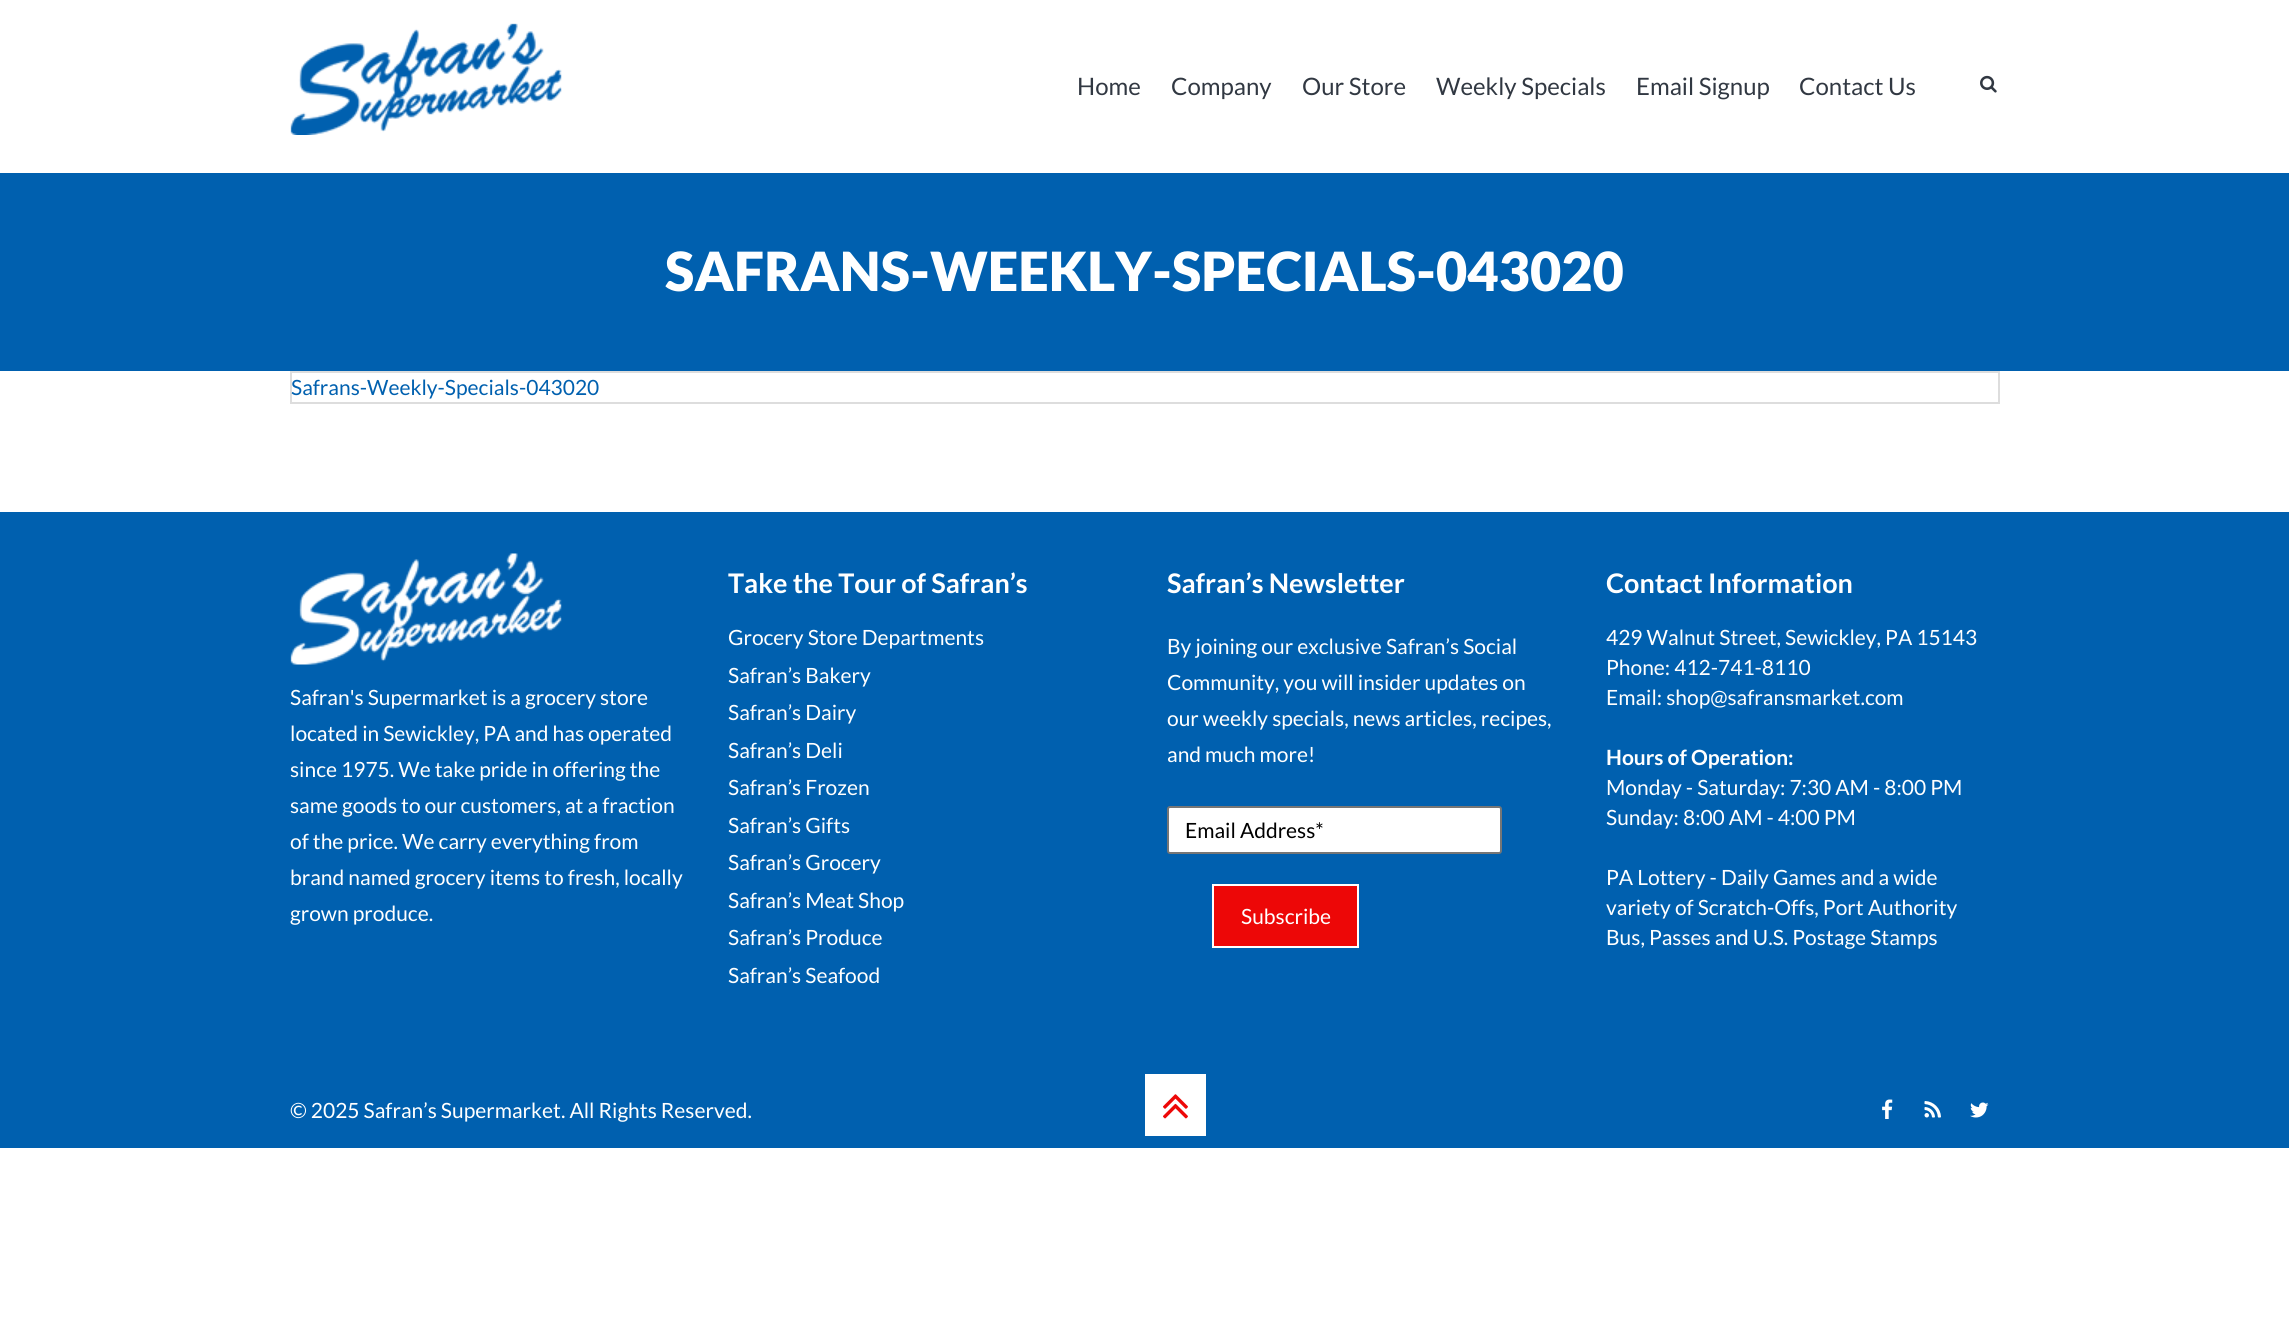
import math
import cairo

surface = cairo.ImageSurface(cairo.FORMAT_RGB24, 2289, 1334)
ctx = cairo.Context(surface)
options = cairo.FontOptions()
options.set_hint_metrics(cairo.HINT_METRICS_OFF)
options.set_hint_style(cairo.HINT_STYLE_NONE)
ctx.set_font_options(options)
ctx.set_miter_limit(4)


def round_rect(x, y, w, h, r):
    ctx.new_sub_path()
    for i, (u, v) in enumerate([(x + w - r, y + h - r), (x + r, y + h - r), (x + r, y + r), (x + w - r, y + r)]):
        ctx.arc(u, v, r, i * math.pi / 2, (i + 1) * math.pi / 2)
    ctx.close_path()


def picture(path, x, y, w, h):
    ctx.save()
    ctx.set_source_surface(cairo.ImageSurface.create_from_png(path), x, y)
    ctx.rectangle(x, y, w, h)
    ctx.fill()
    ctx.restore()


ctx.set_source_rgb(1, 1, 1)
ctx.paint()
picture("img1.png", 290, 23, 272, 112)
ctx.select_font_face("Lato")
ctx.set_font_size(24)
ctx.set_source_rgb(0.192, 0.22, 0.259)
ctx.move_to(1077, 95)
ctx.show_text("Home")
ctx.move_to(1171, 95)
ctx.show_text("Company")
ctx.move_to(1302, 95)
ctx.show_text("Our Store")
ctx.move_to(1436, 95)
ctx.show_text("Weekly Specials")
ctx.move_to(1636, 95)
ctx.show_text("Email Signup")
ctx.move_to(1799, 95)
ctx.show_text("Contact Us")
picture("img2.png", 1980, 75, 17, 18)
ctx.set_source_rgb(0, 0.376, 0.686)
ctx.rectangle(0, 173, 2289, 198)
ctx.fill()
ctx.select_font_face("Lato Black")
ctx.set_font_size(54)
ctx.set_source_rgb(1, 1, 1)
ctx.move_to(665, 291)
ctx.show_text("SAFRANS-WEEKLY-SPECIALS-043020")
ctx.rectangle(291, 372, 1708, 31)
ctx.set_source_rgb(0.867, 0.867, 0.867)
ctx.stroke()
ctx.select_font_face("Lato")
ctx.set_font_size(21)
ctx.set_source_rgb(0, 0.376, 0.686)
ctx.move_to(291, 395)
ctx.show_text("Safrans-Weekly-Specials-043020")
ctx.rectangle(0, 512, 2289, 636)
ctx.fill()
picture("img3.png", 290, 553, 272, 112)
ctx.set_source_rgb(1, 1, 1)
ctx.move_to(290, 705)
ctx.show_text("Safran's Supermarket is a grocery store")
ctx.move_to(290, 741)
ctx.show_text("located in Sewickley, PA and has operated")
ctx.move_to(290, 777)
ctx.show_text("since 1975. We take pride in offering the")
ctx.move_to(290, 813)
ctx.show_text("same goods to our customers, at a fraction")
ctx.move_to(290, 849)
ctx.show_text("of the price. We carry everything from")
ctx.move_to(290, 885)
ctx.show_text("brand named grocery items to fresh, locally")
ctx.move_to(290, 921)
ctx.show_text("grown produce.")
ctx.select_font_face("Lato", cairo.FONT_SLANT_NORMAL, cairo.FONT_WEIGHT_BOLD)
ctx.set_font_size(27)
ctx.move_to(728, 593)
ctx.show_text("Take the Tour of Safran’s")
ctx.select_font_face("Lato")
ctx.set_font_size(21)
ctx.move_to(728, 645)
ctx.show_text("Grocery Store Departments")
ctx.move_to(728, 683)
ctx.show_text("Safran’s Bakery")
ctx.move_to(728, 720)
ctx.show_text("Safran’s Dairy")
ctx.move_to(728, 758)
ctx.show_text("Safran’s Deli")
ctx.move_to(728, 795)
ctx.show_text("Safran’s Frozen")
ctx.move_to(728, 833)
ctx.show_text("Safran’s Gifts")
ctx.move_to(728, 870)
ctx.show_text("Safran’s Grocery")
ctx.move_to(728, 908)
ctx.show_text("Safran’s Meat Shop")
ctx.move_to(728, 945)
ctx.show_text("Safran’s Produce")
ctx.move_to(728, 983)
ctx.show_text("Safran’s Seafood")
ctx.select_font_face("Lato", cairo.FONT_SLANT_NORMAL, cairo.FONT_WEIGHT_BOLD)
ctx.set_font_size(27)
ctx.move_to(1167, 593)
ctx.show_text("Safran’s Newsletter")
ctx.select_font_face("Lato")
ctx.set_font_size(21)
ctx.move_to(1167, 654)
ctx.show_text("By joining our exclusive Safran’s Social")
ctx.move_to(1167, 690)
ctx.show_text("Community, you will insider updates on")
ctx.move_to(1167, 726)
ctx.show_text("our weekly specials, news articles, recipes,")
ctx.move_to(1167, 762)
ctx.show_text("and much more!")
round_rect(1168, 807, 333, 46, 2)
ctx.fill_preserve()
ctx.set_source_rgb(0.463, 0.463, 0.463)
ctx.stroke()
ctx.set_source_rgb(0, 0, 0)
ctx.move_to(1185, 838)
ctx.show_text("Email Address*")
ctx.set_source_rgb(0.929, 0.031, 0.031)
ctx.rectangle(1213, 885, 145, 62)
ctx.fill_preserve()
ctx.set_source_rgb(1, 1, 1)
ctx.stroke()
ctx.move_to(1241, 924)
ctx.show_text("Subscribe")
ctx.select_font_face("Lato", cairo.FONT_SLANT_NORMAL, cairo.FONT_WEIGHT_BOLD)
ctx.set_font_size(27)
ctx.move_to(1606, 593)
ctx.show_text("Contact Information")
ctx.select_font_face("Lato")
ctx.set_font_size(21)
ctx.move_to(1606, 645)
ctx.show_text("429 Walnut Street, Sewickley, PA 15143")
ctx.move_to(1606, 675)
ctx.show_text("Phone: 412-741-8110")
ctx.move_to(1606, 705)
ctx.show_text("Email: shop@safransmarket.com")
ctx.select_font_face("Lato", cairo.FONT_SLANT_NORMAL, cairo.FONT_WEIGHT_BOLD)
ctx.move_to(1606, 765)
ctx.show_text("Hours of Operation:")
ctx.select_font_face("Lato")
ctx.move_to(1606, 795)
ctx.show_text("Monday - Saturday: 7:30 AM - 8:00 PM")
ctx.move_to(1606, 825)
ctx.show_text("Sunday: 8:00 AM - 4:00 PM")
ctx.move_to(1606, 885)
ctx.show_text("PA Lottery - Daily Games and a wide")
ctx.move_to(1606, 915)
ctx.show_text("variety of Scratch-Offs, Port Authority")
ctx.move_to(1606, 945)
ctx.show_text("Bus, Passes and U.S. Postage Stamps")
ctx.rectangle(1145, 1074, 61, 62)
ctx.fill()
picture("img4.png", 1163, 1094, 25, 25)
ctx.move_to(290, 1118)
ctx.show_text("© 2025 Safran’s Supermarket. All Rights Reserved.")
picture("img5.png", 1882, 1099, 11, 20)
picture("img6.png", 1924, 1101, 17, 17)
picture("img7.png", 1970, 1102, 19, 16)
surface.write_to_png("page.png")
